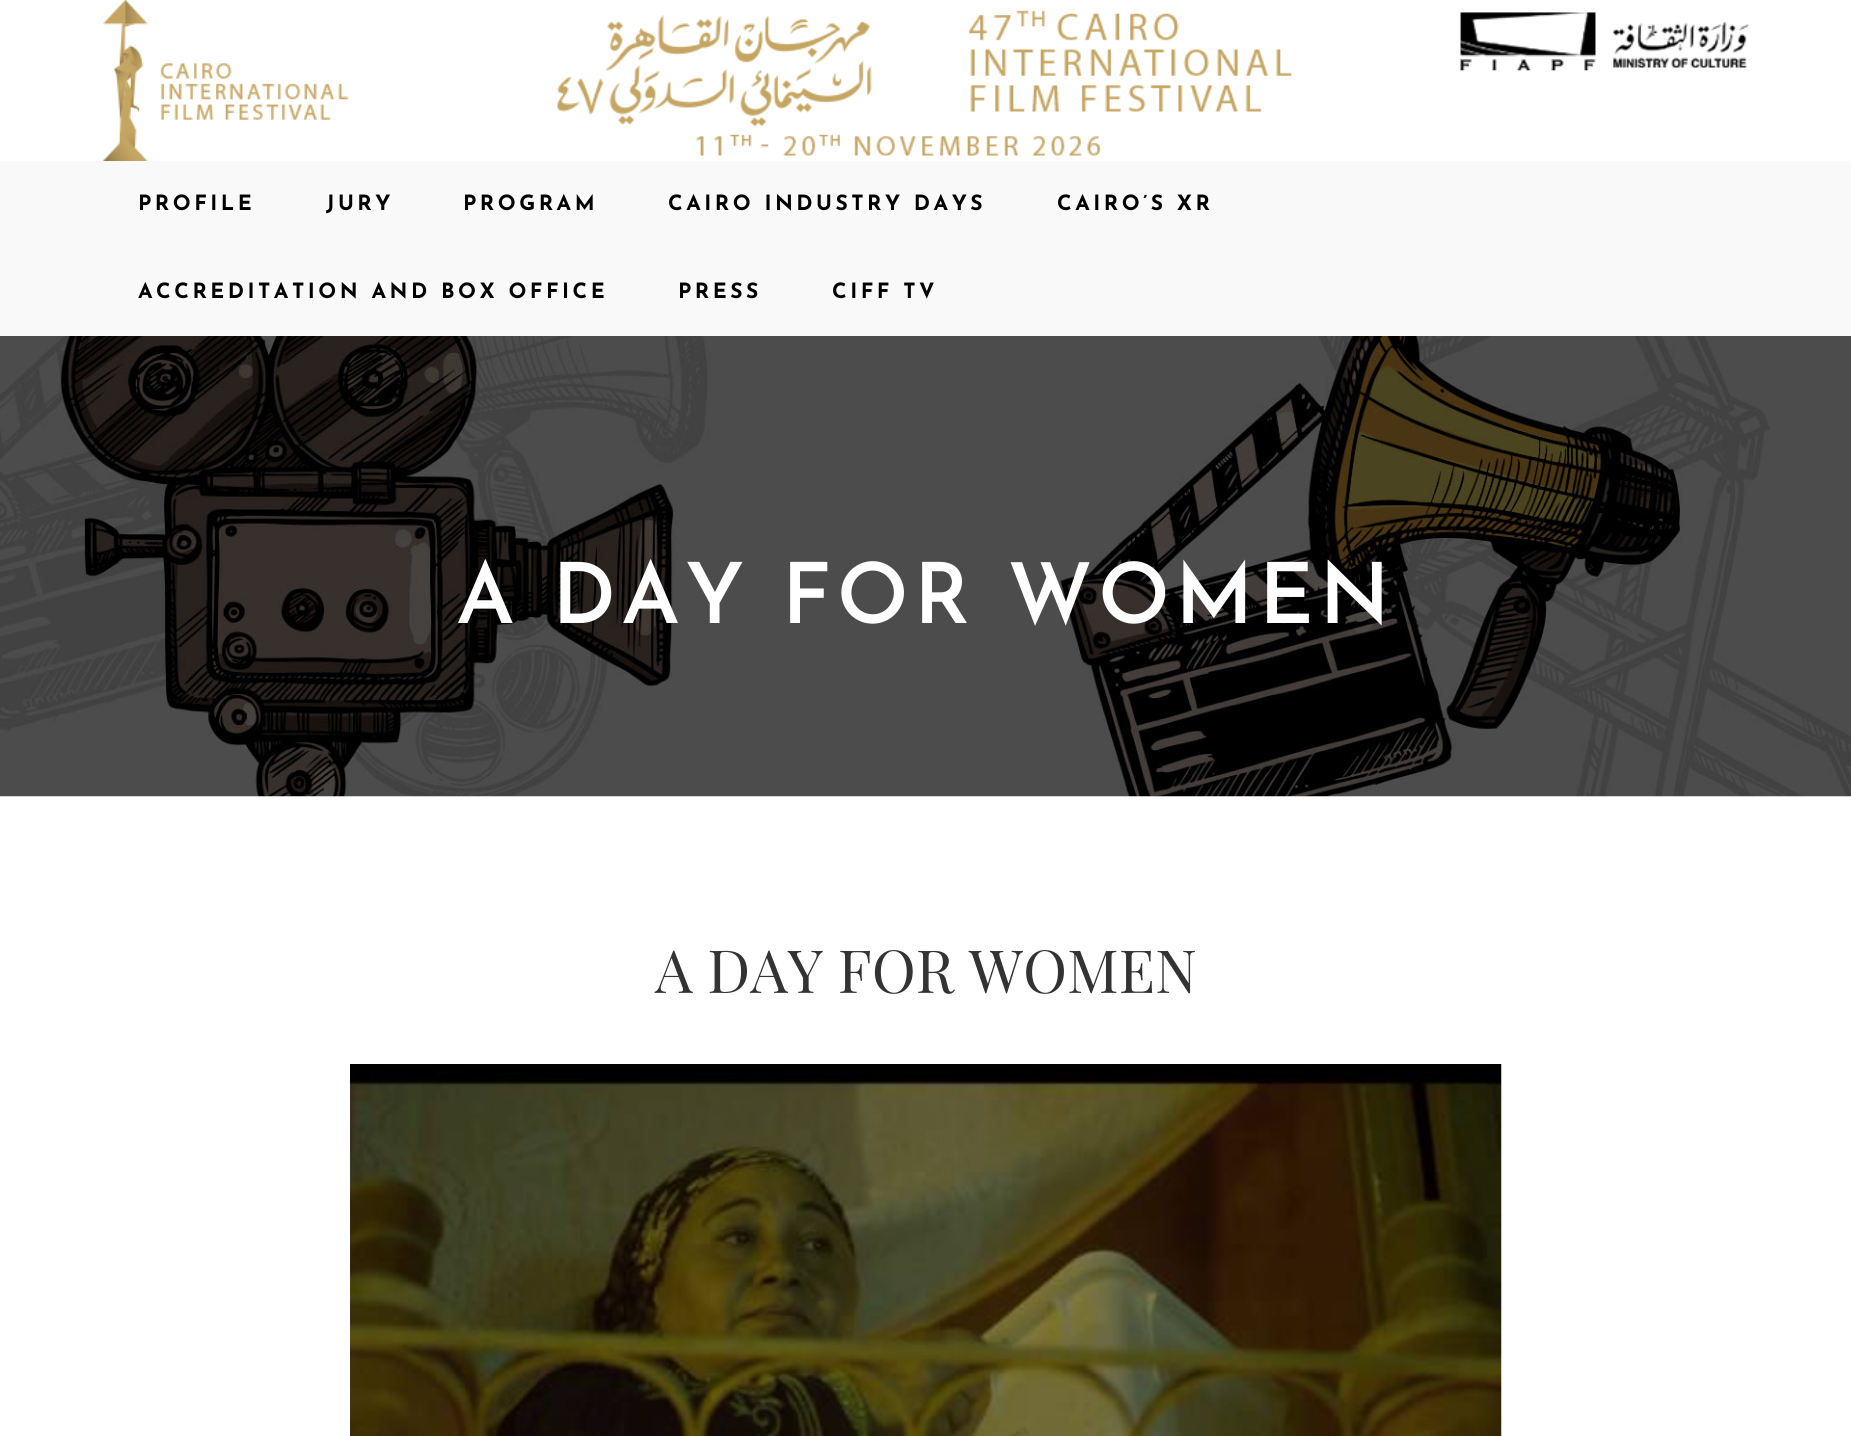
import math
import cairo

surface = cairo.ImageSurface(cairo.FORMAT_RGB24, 1851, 1436)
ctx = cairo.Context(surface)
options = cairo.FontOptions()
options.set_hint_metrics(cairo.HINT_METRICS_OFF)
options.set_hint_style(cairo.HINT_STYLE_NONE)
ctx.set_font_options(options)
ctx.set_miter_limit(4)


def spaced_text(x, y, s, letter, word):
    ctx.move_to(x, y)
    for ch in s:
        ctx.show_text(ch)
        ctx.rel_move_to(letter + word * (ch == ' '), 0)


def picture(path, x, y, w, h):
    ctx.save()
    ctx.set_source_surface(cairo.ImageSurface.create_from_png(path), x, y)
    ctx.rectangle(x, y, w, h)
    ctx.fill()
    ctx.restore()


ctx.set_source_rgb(1, 1, 1)
ctx.paint()
picture("img1.png", 103, 0, 1646, 161)
ctx.set_source_rgb(0.976, 0.976, 0.976)
ctx.rectangle(0, 161, 1851, 175)
ctx.fill()
ctx.select_font_face("Josefin Sans", cairo.FONT_SLANT_NORMAL, cairo.FONT_WEIGHT_BOLD)
ctx.set_font_size(21)
ctx.set_source_rgb(0, 0, 0)
spaced_text(138, 210, "PROFILE", 3.5, 0)
spaced_text(326, 210, "JURY", 3.5, 0)
spaced_text(463, 210, "PROGRAM", 3.5, 0)
spaced_text(668, 210, "CAIRO INDUSTRY DAYS", 3.5, 0)
spaced_text(1057, 210, "CAIRO’S XR", 3.5, 0)
spaced_text(138, 298, "ACCREDITATION AND BOX OFFICE", 3.5, 0)
spaced_text(678, 298, "PRESS", 3.5, 0)
spaced_text(832, 298, "CIFF TV", 3.5, 0)
picture("img2.png", 0, 336, 1851, 461)
ctx.select_font_face("Josefin Sans SemiBold")
ctx.set_font_size(84)
ctx.set_source_rgb(1, 1, 1)
spaced_text(456, 623, "A DAY FOR WOMEN", 5.25, 0)
ctx.select_font_face("Playfair Display")
ctx.set_font_size(59.5)
ctx.set_source_rgb(0.2, 0.2, 0.2)
ctx.move_to(655, 993)
ctx.show_text("A DAY FOR WOMEN")
picture("img3.png", 350, 1064, 1152, 372)
surface.write_to_png("page.png")
